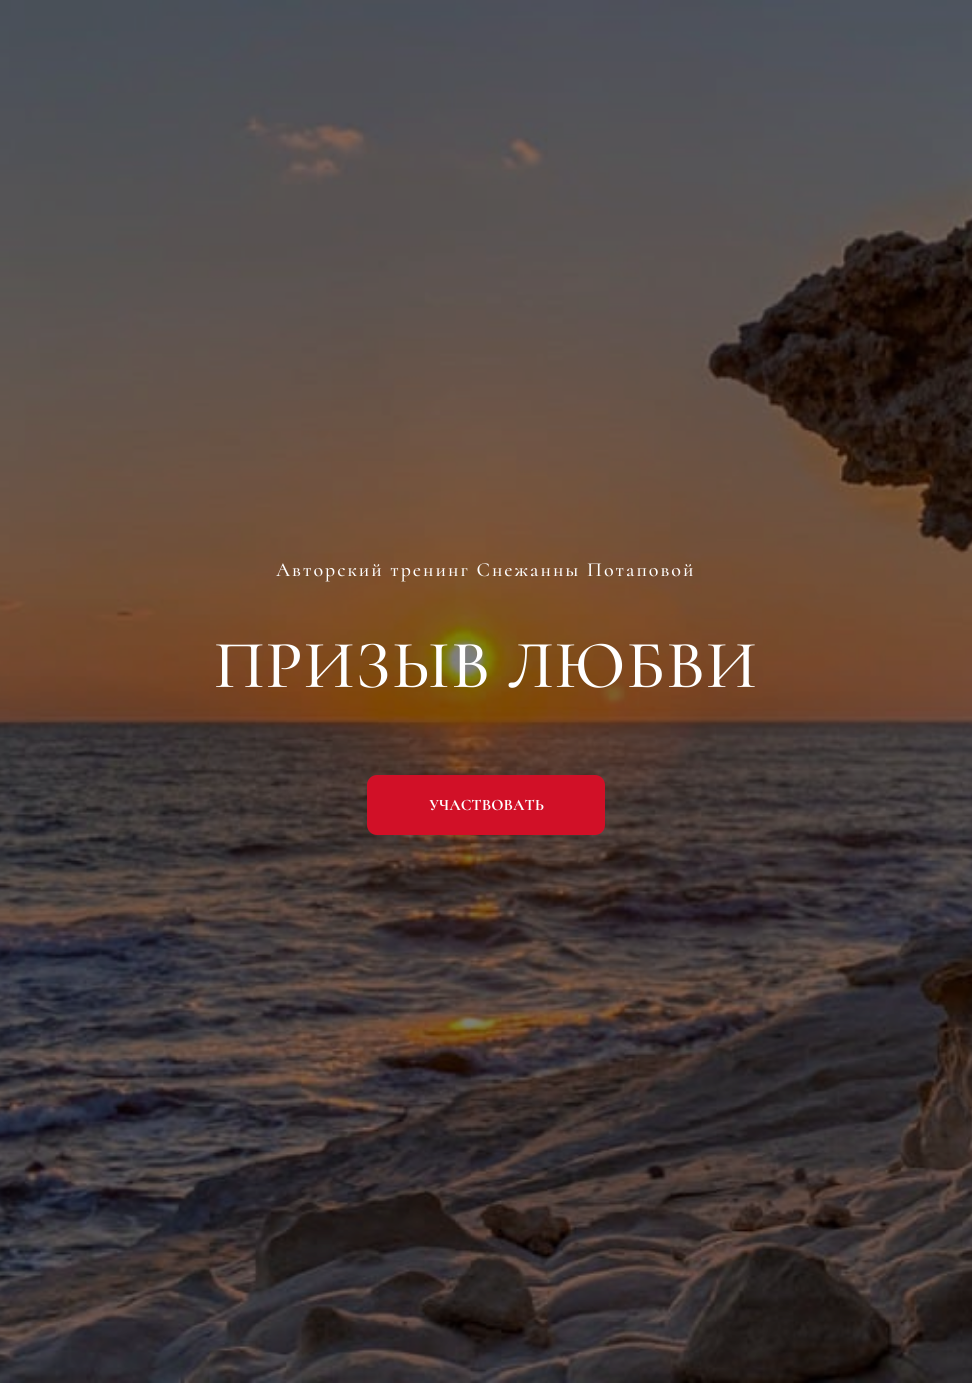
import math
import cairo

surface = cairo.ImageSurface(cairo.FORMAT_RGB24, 972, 1383)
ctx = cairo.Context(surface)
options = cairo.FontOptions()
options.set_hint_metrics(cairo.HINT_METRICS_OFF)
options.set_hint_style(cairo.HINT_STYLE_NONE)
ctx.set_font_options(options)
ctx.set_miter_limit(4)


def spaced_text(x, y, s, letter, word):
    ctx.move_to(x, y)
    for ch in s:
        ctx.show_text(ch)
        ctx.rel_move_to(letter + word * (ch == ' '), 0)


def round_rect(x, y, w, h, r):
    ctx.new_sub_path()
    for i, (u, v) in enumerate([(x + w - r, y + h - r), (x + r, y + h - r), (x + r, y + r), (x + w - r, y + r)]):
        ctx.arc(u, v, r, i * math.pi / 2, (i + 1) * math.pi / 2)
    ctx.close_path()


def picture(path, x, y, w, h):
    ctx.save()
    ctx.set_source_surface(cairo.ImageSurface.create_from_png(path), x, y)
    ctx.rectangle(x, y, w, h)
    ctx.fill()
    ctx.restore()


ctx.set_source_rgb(1, 1, 1)
ctx.paint()
picture("img1.png", 0, 0, 972, 1383)
ctx.select_font_face("Cormorant Medium")
ctx.set_font_size(20)
ctx.set_source_rgb(1, 1, 1)
spaced_text(276, 576, "Авторский тренинг Снежанны Потаповой", 2, 0)
ctx.set_font_size(68)
spaced_text(214, 687, "ПРИЗЫВ ЛЮБВИ", 1, 0)
ctx.set_source_rgb(0.82, 0.063, 0.153)
round_rect(367, 775, 238, 60, 10)
ctx.fill()
ctx.select_font_face("Cormorant", cairo.FONT_SLANT_NORMAL, cairo.FONT_WEIGHT_BOLD)
ctx.set_font_size(16)
ctx.set_source_rgb(1, 1, 1)
ctx.move_to(429, 810)
ctx.show_text("УЧАСТВОВАТЬ")
surface.write_to_png("page.png")
